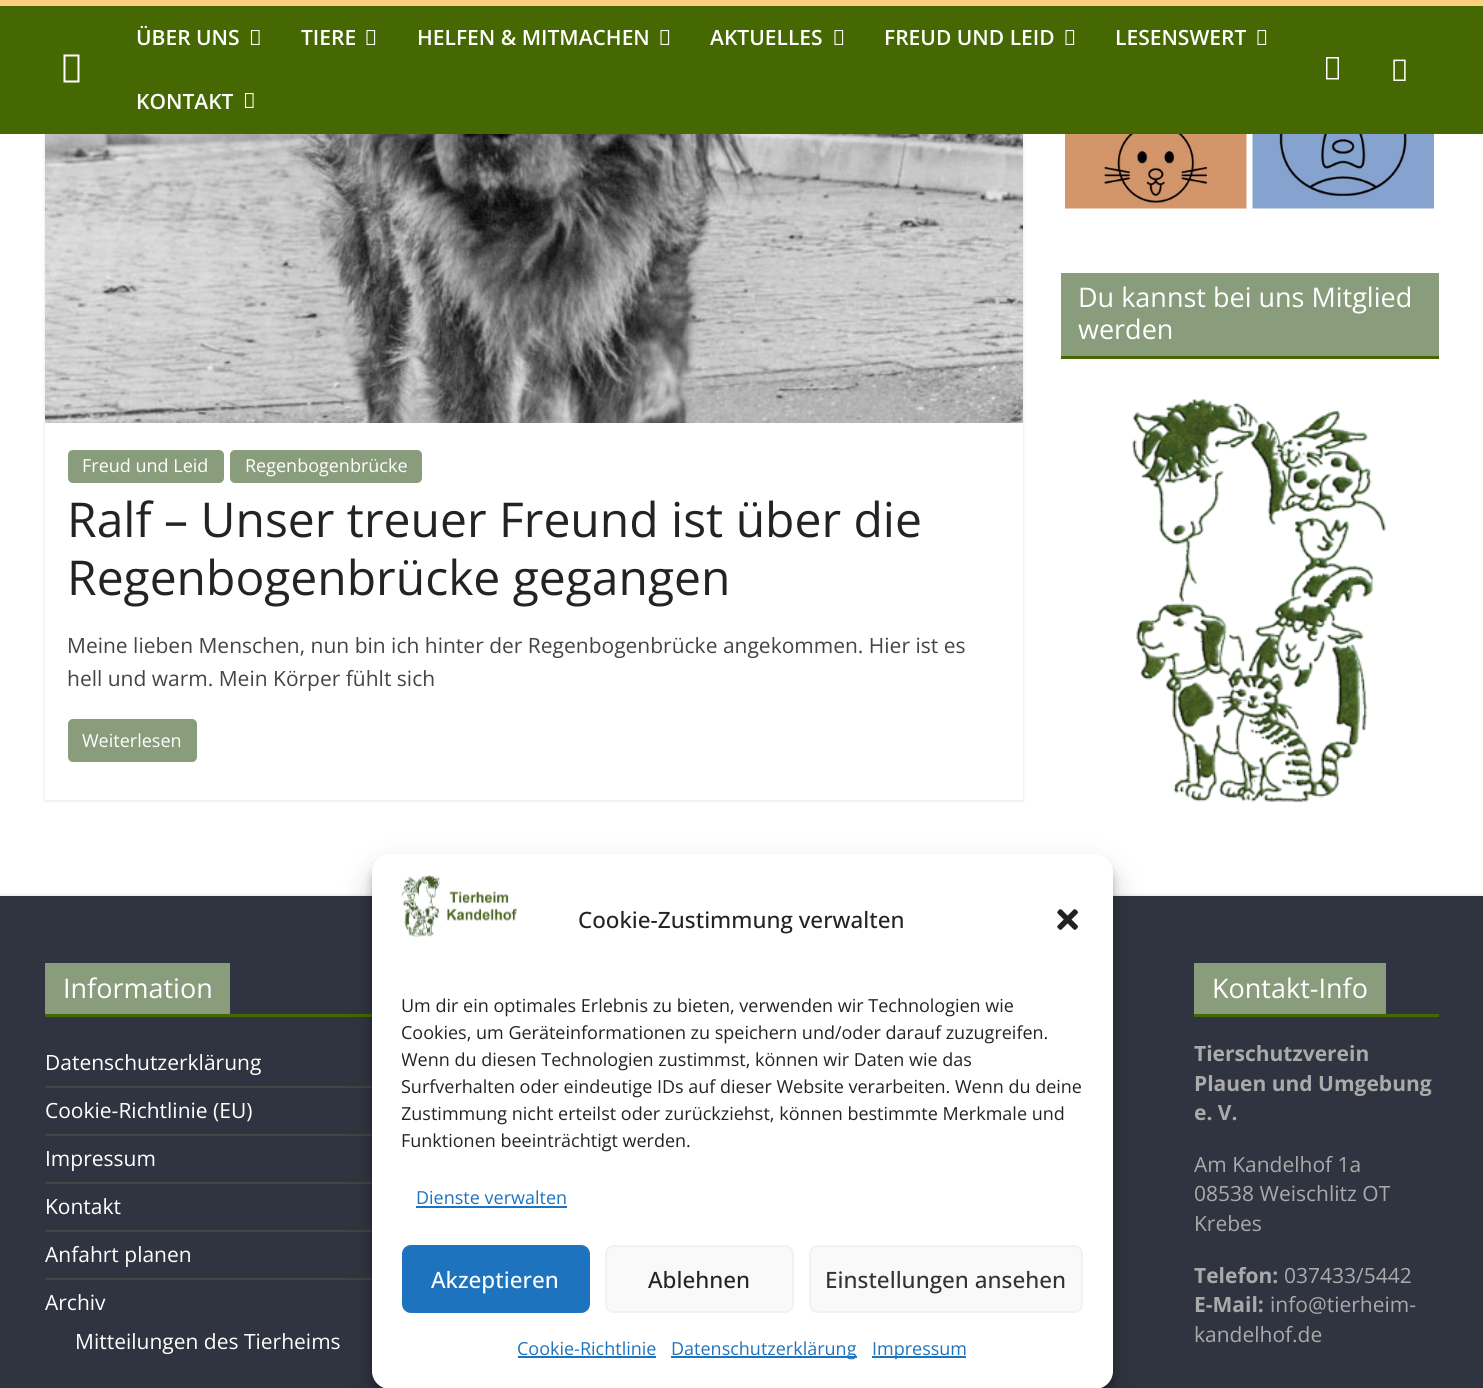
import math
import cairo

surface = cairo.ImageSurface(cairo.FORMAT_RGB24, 1483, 1388)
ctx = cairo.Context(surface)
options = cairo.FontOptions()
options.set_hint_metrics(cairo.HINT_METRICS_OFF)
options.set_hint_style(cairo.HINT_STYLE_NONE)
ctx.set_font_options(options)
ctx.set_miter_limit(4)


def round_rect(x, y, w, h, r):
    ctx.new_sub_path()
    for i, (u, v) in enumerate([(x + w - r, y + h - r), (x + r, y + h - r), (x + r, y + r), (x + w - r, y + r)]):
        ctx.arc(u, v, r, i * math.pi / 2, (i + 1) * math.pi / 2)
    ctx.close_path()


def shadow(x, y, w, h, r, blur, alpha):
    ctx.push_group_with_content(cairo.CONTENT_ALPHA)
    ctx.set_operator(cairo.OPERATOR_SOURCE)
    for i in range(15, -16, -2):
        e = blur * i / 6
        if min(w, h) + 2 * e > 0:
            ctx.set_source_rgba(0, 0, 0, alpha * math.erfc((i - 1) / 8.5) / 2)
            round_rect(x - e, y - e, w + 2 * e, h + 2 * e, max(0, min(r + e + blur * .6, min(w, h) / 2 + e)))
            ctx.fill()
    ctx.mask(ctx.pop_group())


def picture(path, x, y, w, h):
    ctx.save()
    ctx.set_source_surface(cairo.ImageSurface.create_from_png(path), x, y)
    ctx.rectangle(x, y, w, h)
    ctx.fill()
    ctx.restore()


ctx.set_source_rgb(1, 1, 1)
ctx.paint()
ctx.save()
ctx.set_fill_rule(cairo.FILL_RULE_EVEN_ODD)
ctx.new_path()
ctx.move_to(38, 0)
ctx.line_to(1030, 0)
ctx.line_to(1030, 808)
ctx.line_to(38, 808)
ctx.close_path()
ctx.move_to(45, -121)
ctx.line_to(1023, -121)
ctx.line_to(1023, 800)
ctx.line_to(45, 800)
ctx.close_path()
ctx.clip()
ctx.set_source_rgb(0, 0, 0)
shadow(45, -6, 978, 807, 0, 2, 0.1)
ctx.restore()
ctx.set_source_rgb(0.275, 0.408, 0.008)
ctx.rectangle(0, 6, 1483, 128)
ctx.fill()
ctx.set_source_rgb(0.988, 0.812, 0.498)
ctx.rectangle(0, 0, 1483, 6)
ctx.fill()
ctx.set_source_rgb(1, 1, 1)
ctx.new_path()
ctx.move_to(63.5, 82.5)
ctx.line_to(63.5, 54.5)
ctx.line_to(79.5, 54.5)
ctx.line_to(79.5, 82.5)
ctx.close_path()
ctx.move_to(65.5, 80.5)
ctx.line_to(77.5, 80.5)
ctx.line_to(77.5, 56.5)
ctx.line_to(65.5, 56.5)
ctx.close_path()
ctx.fill()
ctx.select_font_face("Open Sans SemiBold")
ctx.set_font_size(21)
ctx.move_to(136, 45)
ctx.show_text("ÜBER UNS")
picture("img1.png", 250, 30, 10, 15)
ctx.move_to(301, 45)
ctx.show_text("TIERE")
picture("img2.png", 366, 30, 10, 15)
ctx.move_to(417, 45)
ctx.show_text("HELFEN & MITMACHEN")
picture("img2.png", 660, 30, 10, 15)
ctx.move_to(710, 45)
ctx.show_text("AKTUELLES")
picture("img2.png", 834, 30, 10, 15)
ctx.move_to(884, 45)
ctx.show_text("FREUD UND LEID")
picture("img2.png", 1065, 30, 10, 15)
ctx.move_to(1115, 45)
ctx.show_text("LESENSWERT")
picture("img2.png", 1257, 30, 10, 15)
ctx.move_to(136, 109)
ctx.show_text("KONTAKT")
picture("img1.png", 244, 93, 10, 15)
ctx.new_path()
ctx.move_to(1326, 79.5)
ctx.line_to(1326, 57)
ctx.line_to(1339, 57)
ctx.line_to(1339, 79.5)
ctx.close_path()
ctx.move_to(1327.5, 78)
ctx.line_to(1337.5, 78)
ctx.line_to(1337.5, 58.5)
ctx.line_to(1327.5, 58.5)
ctx.close_path()
ctx.fill()
picture("img3.png", 1393, 59, 13, 22)
picture("img4.png", 1065, 134, 182, 75)
picture("img5.png", 1252, 134, 182, 75)
ctx.set_source_rgb(0.275, 0.408, 0.008)
ctx.rectangle(1061, 356, 378, 3)
ctx.fill()
ctx.set_source_rgb(0.537, 0.616, 0.49)
ctx.rectangle(1061, 273, 378, 83)
ctx.fill()
ctx.select_font_face("Open Sans")
ctx.set_font_size(27)
ctx.set_source_rgb(1, 1, 1)
ctx.move_to(1078, 307)
ctx.show_text("Du kannst bei uns Mitglied")
ctx.move_to(1078, 339)
ctx.show_text("werden")
picture("img6.png", 1132, 398, 254, 405)
picture("img7.png", 45, 134, 978, 289)
ctx.set_source_rgb(0.537, 0.616, 0.49)
round_rect(68, 450, 156, 33, 5)
ctx.fill()
ctx.set_font_size(18)
ctx.set_source_rgb(1, 1, 1)
ctx.move_to(82, 472)
ctx.show_text("Freud und Leid")
ctx.set_source_rgb(0.537, 0.616, 0.49)
round_rect(230, 450, 192, 33, 5)
ctx.fill()
ctx.set_source_rgb(1, 1, 1)
ctx.move_to(245, 472)
ctx.show_text("Regenbogenbrücke")
ctx.set_font_size(48)
ctx.set_source_rgb(0.137, 0.137, 0.137)
ctx.move_to(67, 537)
ctx.show_text("Ralf – Unser treuer Freund ist über die")
ctx.move_to(67, 595)
ctx.show_text("Regenbogenbrücke gegangen")
ctx.set_font_size(21)
ctx.set_source_rgb(0.267, 0.267, 0.267)
ctx.move_to(67, 653)
ctx.show_text("Meine lieben Menschen, nun bin ich hinter der Regenbogenbrücke angekommen. Hier ist es")
ctx.move_to(67, 686)
ctx.show_text("hell und warm. Mein Körper fühlt sich")
ctx.set_source_rgb(0.537, 0.616, 0.49)
round_rect(68, 719, 129, 43, 5)
ctx.fill()
ctx.set_font_size(18)
ctx.set_source_rgb(1, 1, 1)
ctx.move_to(82, 747)
ctx.show_text("Weiterlesen")
ctx.set_source_rgb(0.188, 0.204, 0.251)
ctx.rectangle(0, 896, 1483, 492)
ctx.fill()
ctx.set_source_rgb(0.949, 0.949, 0.949)
ctx.rectangle(0, 894, 1483, 2)
ctx.fill()
ctx.set_source_rgb(0.275, 0.408, 0.008)
ctx.rectangle(45, 1014, 327, 3)
ctx.fill()
ctx.set_source_rgb(0.537, 0.616, 0.49)
ctx.rectangle(45, 963, 185, 51)
ctx.fill()
ctx.set_font_size(27)
ctx.set_source_rgb(1, 1, 1)
ctx.move_to(63, 998)
ctx.show_text("Information")
ctx.set_source_rgb(0.267, 0.267, 0.267)
ctx.rectangle(45, 1086, 327, 2)
ctx.fill()
ctx.set_font_size(21)
ctx.set_source_rgb(1, 1, 1)
ctx.move_to(45, 1070)
ctx.show_text("Datenschutzerklärung")
ctx.set_source_rgb(0.267, 0.267, 0.267)
ctx.rectangle(45, 1134, 327, 2)
ctx.fill()
ctx.set_source_rgb(1, 1, 1)
ctx.move_to(45, 1118)
ctx.show_text("Cookie-Richtlinie (EU)")
ctx.set_source_rgb(0.267, 0.267, 0.267)
ctx.rectangle(45, 1182, 327, 2)
ctx.fill()
ctx.set_source_rgb(1, 1, 1)
ctx.move_to(45, 1166)
ctx.show_text("Impressum")
ctx.set_source_rgb(0.267, 0.267, 0.267)
ctx.rectangle(45, 1230, 327, 2)
ctx.fill()
ctx.set_source_rgb(1, 1, 1)
ctx.move_to(45, 1214)
ctx.show_text("Kontakt")
ctx.set_source_rgb(0.267, 0.267, 0.267)
ctx.rectangle(45, 1278, 327, 2)
ctx.fill()
ctx.set_source_rgb(1, 1, 1)
ctx.move_to(45, 1262)
ctx.show_text("Anfahrt planen")
ctx.move_to(45, 1310)
ctx.show_text("Archiv")
ctx.move_to(75, 1349)
ctx.show_text("Mitteilungen des Tierheims")
ctx.set_source_rgb(0.275, 0.408, 0.008)
ctx.rectangle(1194, 1014, 245, 3)
ctx.fill()
ctx.set_source_rgb(0.537, 0.616, 0.49)
ctx.rectangle(1194, 963, 192, 51)
ctx.fill()
ctx.set_font_size(27)
ctx.set_source_rgb(1, 1, 1)
ctx.move_to(1212, 998)
ctx.show_text("Kontakt-Info")
ctx.select_font_face("Open Sans", cairo.FONT_SLANT_NORMAL, cairo.FONT_WEIGHT_BOLD)
ctx.set_font_size(21)
ctx.set_source_rgb(0.667, 0.667, 0.667)
ctx.move_to(1194, 1061)
ctx.show_text("Tierschutzverein")
ctx.move_to(1194, 1091)
ctx.show_text("Plauen und Umgebung")
ctx.move_to(1194, 1120)
ctx.show_text("e. V.")
ctx.select_font_face("Open Sans")
ctx.move_to(1194, 1172)
ctx.show_text("Am Kandelhof 1a")
ctx.move_to(1194, 1201)
ctx.show_text("08538 Weischlitz OT")
ctx.move_to(1194, 1231)
ctx.show_text("Krebes")
ctx.select_font_face("Open Sans", cairo.FONT_SLANT_NORMAL, cairo.FONT_WEIGHT_BOLD)
ctx.move_to(1194, 1283)
ctx.show_text("Telefon:")
ctx.select_font_face("Open Sans")
ctx.move_to(1284, 1283)
ctx.show_text("037433/5442")
ctx.select_font_face("Open Sans", cairo.FONT_SLANT_NORMAL, cairo.FONT_WEIGHT_BOLD)
ctx.move_to(1194, 1312)
ctx.show_text("E-Mail:")
ctx.select_font_face("Open Sans")
ctx.move_to(1270, 1312)
ctx.show_text("info@tierheim-")
ctx.move_to(1194, 1342)
ctx.show_text("kandelhof.de")
ctx.set_source_rgb(0, 0, 0)
shadow(372, 863, 741, 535, 18, 4.5, 0.23)
shadow(372, 869, 741, 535, 18, 15, 0.19)
ctx.set_source_rgb(1, 1, 1)
round_rect(372, 854, 741, 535, 18)
ctx.fill()
picture("img8.png", 401, 875, 116, 62)
ctx.select_font_face("Open Sans Medium")
ctx.set_font_size(22.5)
ctx.set_source_rgb(0.137, 0.137, 0.137)
ctx.move_to(578, 928)
ctx.show_text("Cookie-Zustimmung verwalten")
picture("img9.png", 1057, 909, 21, 21)
ctx.select_font_face("Open Sans")
ctx.set_font_size(18)
ctx.move_to(401, 1012)
ctx.show_text("Um dir ein optimales Erlebnis zu bieten, verwenden wir Technologien wie")
ctx.move_to(401, 1039)
ctx.show_text("Cookies, um Geräteinformationen zu speichern und/oder darauf zuzugreifen.")
ctx.save()
ctx.rectangle(402, 993, 681, 170)
ctx.clip()
ctx.move_to(401, 1066)
ctx.show_text("Wenn du diesen Technologien zustimmst, können wir Daten wie das")
ctx.restore()
ctx.move_to(401, 1093)
ctx.show_text("Surfverhalten oder eindeutige IDs auf dieser Website verarbeiten. Wenn du deine")
ctx.save()
ctx.rectangle(402, 993, 681, 170)
ctx.clip()
ctx.move_to(401, 1120)
ctx.show_text("Zustimmung nicht erteilst oder zurückziehst, können bestimmte Merkmale und")
ctx.restore()
ctx.move_to(401, 1147)
ctx.show_text("Funktionen beeinträchtigt werden.")
ctx.set_source_rgb(0.118, 0.451, 0.745)
ctx.move_to(416, 1204)
ctx.show_text("Dienste verwalten")
ctx.rectangle(416, 1206, 151, 2)
ctx.fill()
round_rect(403, 1246, 186, 66, 8)
ctx.fill_preserve()
ctx.stroke()
ctx.select_font_face("Open Sans Medium")
ctx.set_font_size(22.5)
ctx.set_source_rgb(1, 1, 1)
ctx.move_to(431, 1288)
ctx.show_text("Akzeptieren")
ctx.set_source_rgb(0.976, 0.976, 0.976)
round_rect(606, 1246, 187, 66, 8)
ctx.fill_preserve()
ctx.set_source_rgb(0.949, 0.949, 0.949)
ctx.stroke()
ctx.set_source_rgb(0.137, 0.137, 0.137)
ctx.move_to(648, 1288)
ctx.show_text("Ablehnen")
ctx.set_source_rgb(0.976, 0.976, 0.976)
round_rect(810, 1246, 272, 66, 8)
ctx.fill_preserve()
ctx.set_source_rgb(0.949, 0.949, 0.949)
ctx.stroke()
ctx.set_source_rgb(0.2, 0.2, 0.2)
ctx.move_to(825, 1288)
ctx.show_text("Einstellungen ansehen")
ctx.select_font_face("Open Sans")
ctx.set_font_size(18)
ctx.set_source_rgb(0.118, 0.451, 0.745)
ctx.move_to(517, 1355)
ctx.show_text("Cookie-Richtlinie")
ctx.rectangle(518, 1356, 138, 2)
ctx.fill()
ctx.rectangle(671, 1356, 186, 2)
ctx.fill()
ctx.move_to(671, 1355)
ctx.show_text("Datenschutzerklärung")
ctx.rectangle(872, 1356, 94, 2)
ctx.fill()
ctx.move_to(872, 1355)
ctx.show_text("Impressum")
surface.write_to_png("page.png")
